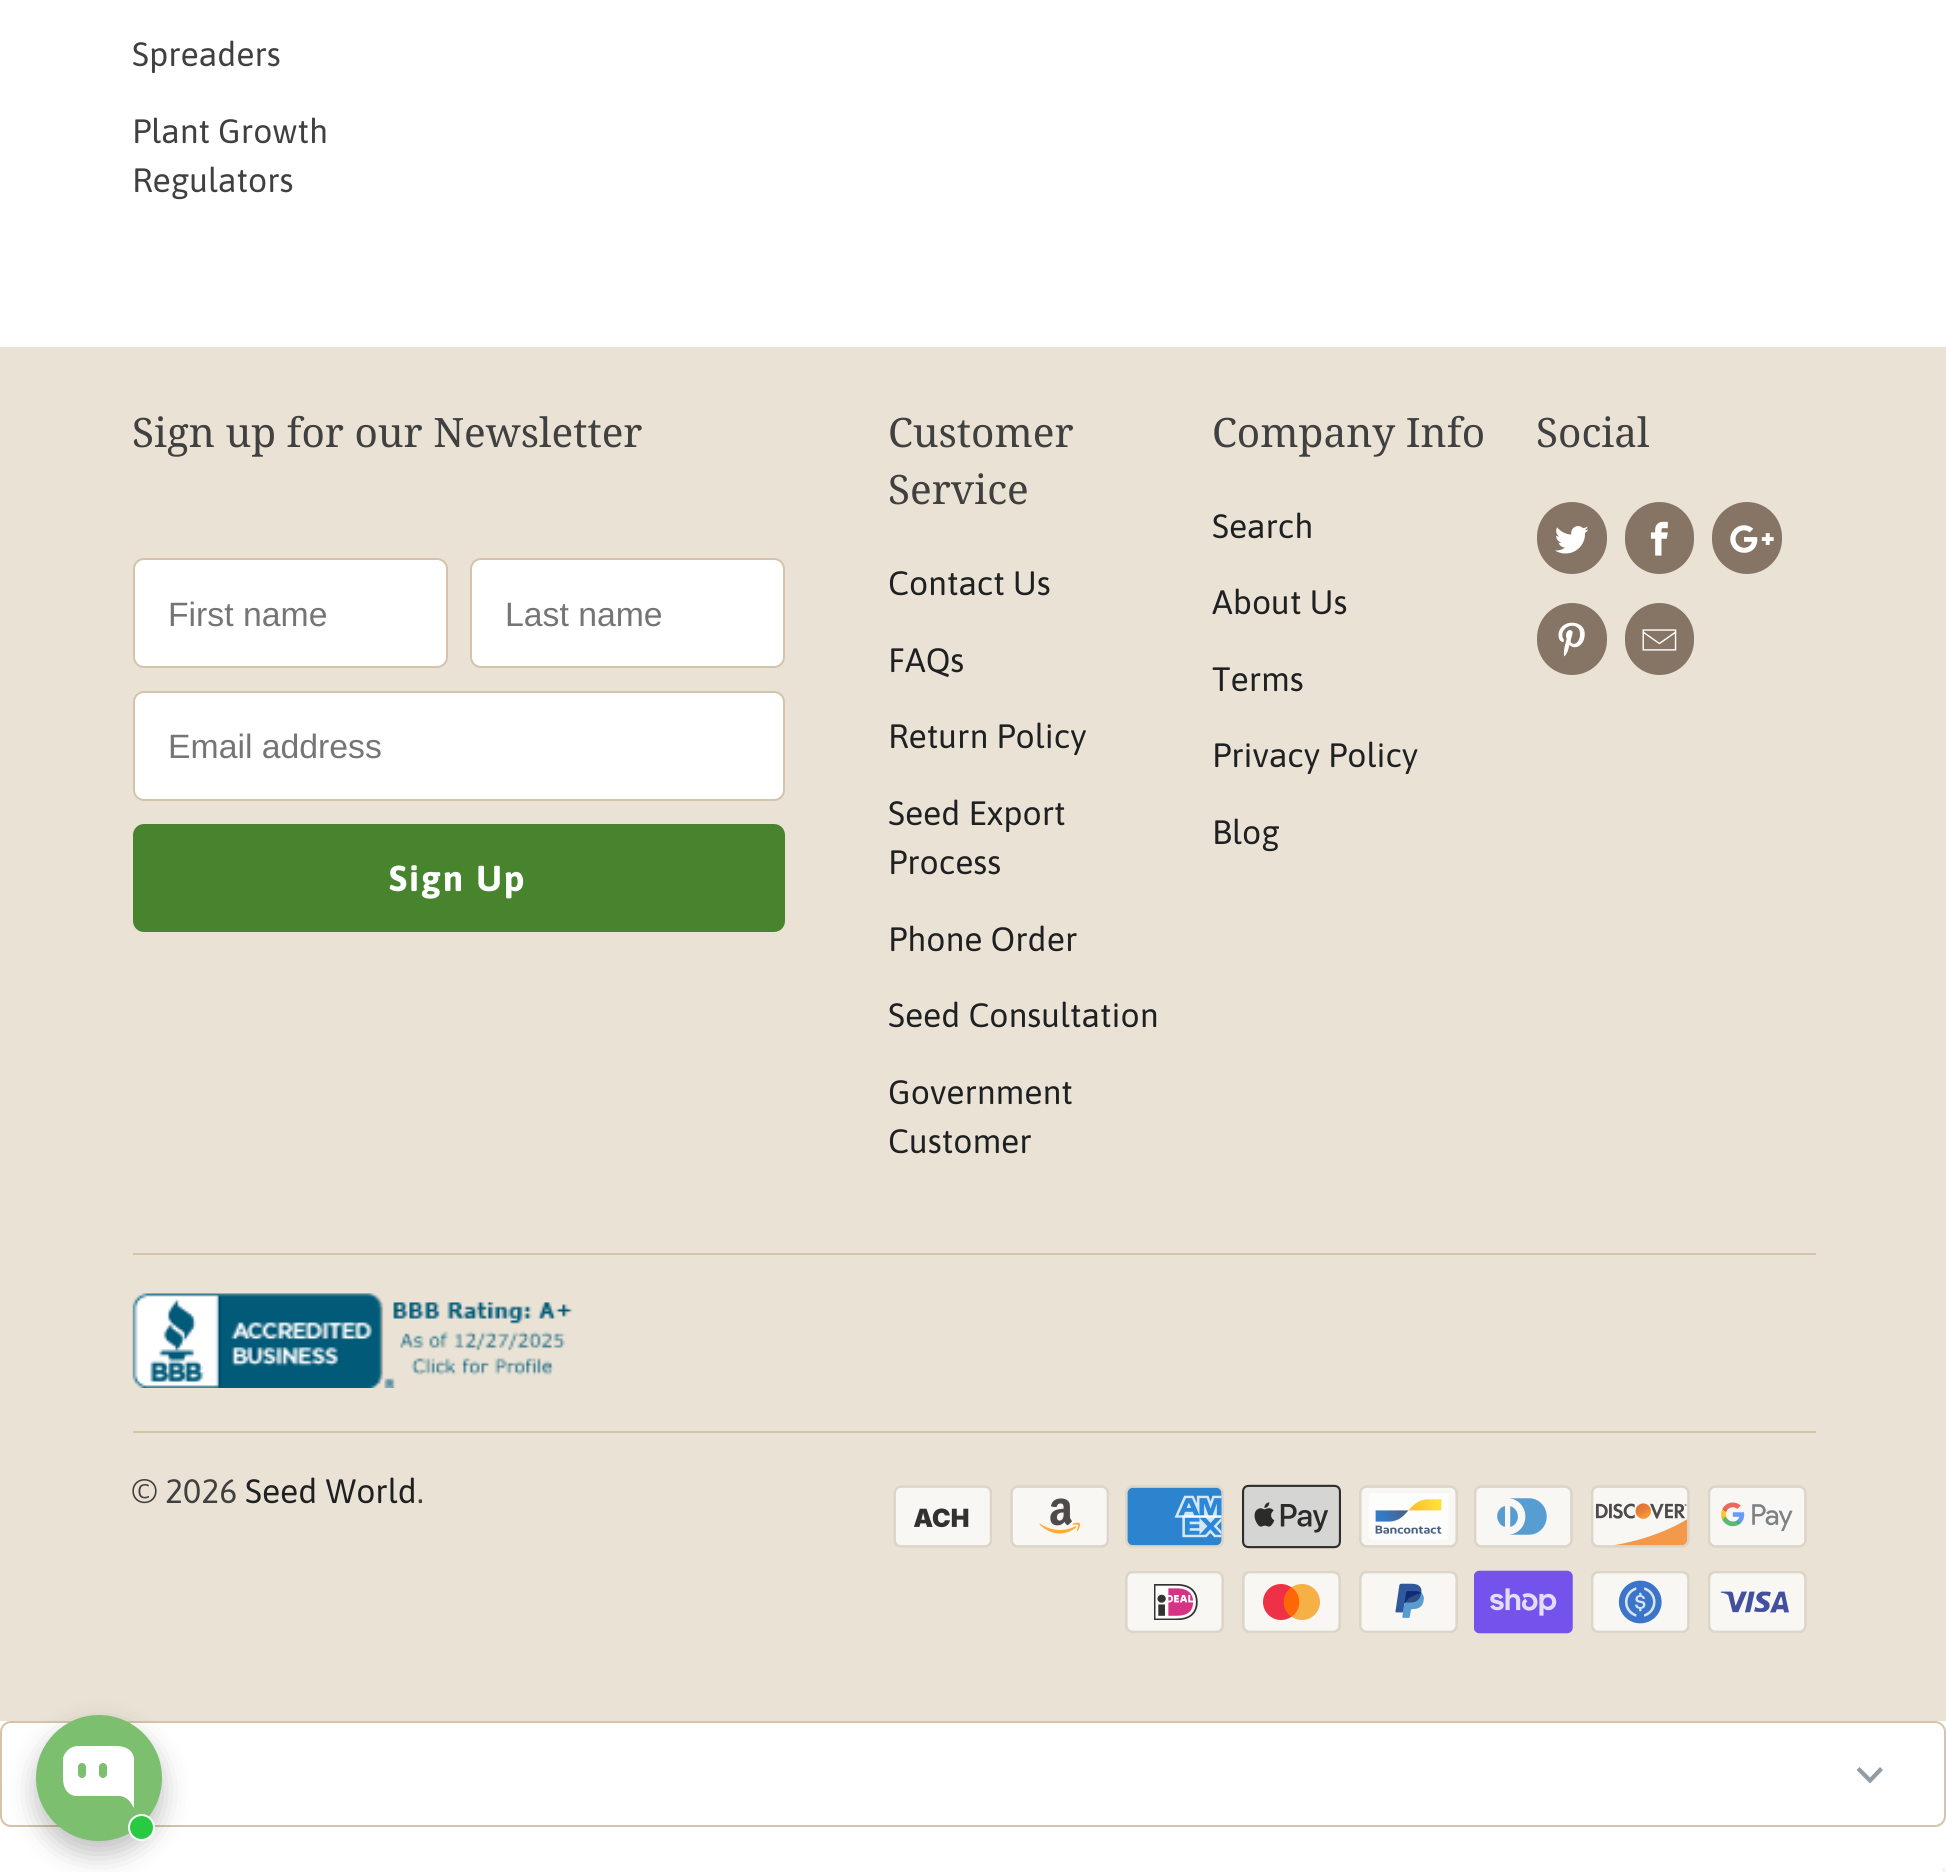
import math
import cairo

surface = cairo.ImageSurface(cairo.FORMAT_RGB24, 1946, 1872)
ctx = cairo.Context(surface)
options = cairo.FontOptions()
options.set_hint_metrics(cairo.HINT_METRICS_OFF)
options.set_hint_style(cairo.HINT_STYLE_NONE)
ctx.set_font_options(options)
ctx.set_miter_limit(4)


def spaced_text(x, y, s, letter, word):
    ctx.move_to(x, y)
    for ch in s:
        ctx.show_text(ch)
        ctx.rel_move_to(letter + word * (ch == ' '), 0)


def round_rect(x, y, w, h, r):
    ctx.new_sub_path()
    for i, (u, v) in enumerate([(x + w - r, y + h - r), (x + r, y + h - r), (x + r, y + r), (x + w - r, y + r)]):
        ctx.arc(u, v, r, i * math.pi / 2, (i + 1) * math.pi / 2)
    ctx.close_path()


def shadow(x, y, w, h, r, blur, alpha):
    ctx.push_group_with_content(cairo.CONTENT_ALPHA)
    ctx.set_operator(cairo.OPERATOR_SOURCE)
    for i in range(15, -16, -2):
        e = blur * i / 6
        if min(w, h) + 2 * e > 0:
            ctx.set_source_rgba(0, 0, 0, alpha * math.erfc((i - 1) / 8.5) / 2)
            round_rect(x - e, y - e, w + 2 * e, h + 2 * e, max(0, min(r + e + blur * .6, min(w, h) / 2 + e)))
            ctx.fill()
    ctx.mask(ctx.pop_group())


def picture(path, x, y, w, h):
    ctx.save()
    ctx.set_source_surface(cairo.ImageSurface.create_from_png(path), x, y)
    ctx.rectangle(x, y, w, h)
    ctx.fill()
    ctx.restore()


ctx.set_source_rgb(1, 1, 1)
ctx.paint()
ctx.select_font_face("Asap")
ctx.set_font_size(33.75)
ctx.set_source_rgb(0.251, 0.251, 0.251)
ctx.move_to(132, 66)
ctx.show_text("Spreaders")
ctx.move_to(132, 143)
ctx.show_text("Plant Growth")
ctx.move_to(132, 192)
ctx.show_text("Regulators")
ctx.set_source_rgb(0.914, 0.886, 0.835)
ctx.rectangle(0, 347, 1946, 1374)
ctx.fill()
ctx.select_font_face("Noto Serif")
ctx.set_font_size(40.5)
ctx.set_source_rgb(0.251, 0.251, 0.251)
ctx.move_to(132, 447)
ctx.show_text("Sign up for our Newsletter")
ctx.set_source_rgb(1, 1, 1)
round_rect(134, 559, 313, 108, 10)
ctx.fill_preserve()
ctx.set_source_rgb(0.835, 0.765, 0.667)
ctx.stroke()
ctx.select_font_face("Liberation Sans")
ctx.set_font_size(33.75)
ctx.set_source_rgb(0.459, 0.459, 0.459)
ctx.move_to(168, 626)
ctx.show_text("First name")
ctx.set_source_rgb(1, 1, 1)
round_rect(471, 559, 313, 108, 10)
ctx.fill_preserve()
ctx.set_source_rgb(0.835, 0.765, 0.667)
ctx.stroke()
ctx.set_source_rgb(0.459, 0.459, 0.459)
ctx.move_to(505, 626)
ctx.show_text("Last name")
ctx.set_source_rgb(1, 1, 1)
round_rect(134, 692, 650, 108, 10)
ctx.fill_preserve()
ctx.set_source_rgb(0.835, 0.765, 0.667)
ctx.stroke()
ctx.set_source_rgb(0.459, 0.459, 0.459)
ctx.move_to(168, 758)
ctx.show_text("Email address")
ctx.set_source_rgb(0.282, 0.518, 0.176)
round_rect(133, 824, 652, 108, 11)
ctx.fill()
ctx.select_font_face("Asap", cairo.FONT_SLANT_NORMAL, cairo.FONT_WEIGHT_BOLD)
ctx.set_font_size(36)
ctx.set_source_rgb(1, 1, 1)
spaced_text(389, 891, "Sign Up", 2.25, 0)
ctx.select_font_face("Noto Serif")
ctx.set_font_size(40.5)
ctx.set_source_rgb(0.251, 0.251, 0.251)
ctx.move_to(888, 447)
ctx.show_text("Customer")
ctx.move_to(888, 504)
ctx.show_text("Service")
ctx.select_font_face("Asap")
ctx.set_font_size(33.75)
ctx.set_source_rgb(0.122, 0.125, 0.129)
ctx.move_to(888, 595)
ctx.show_text("Contact Us")
ctx.move_to(888, 672)
ctx.show_text("FAQs")
ctx.move_to(888, 748)
ctx.show_text("Return Policy")
ctx.move_to(888, 825)
ctx.show_text("Seed Export")
ctx.move_to(888, 874)
ctx.show_text("Process")
ctx.move_to(888, 951)
ctx.show_text("Phone Order")
ctx.move_to(888, 1027)
ctx.show_text("Seed Consultation")
ctx.move_to(888, 1104)
ctx.show_text("Government")
ctx.move_to(888, 1153)
ctx.show_text("Customer")
ctx.select_font_face("Noto Serif")
ctx.set_font_size(40.5)
ctx.set_source_rgb(0.251, 0.251, 0.251)
ctx.move_to(1212, 447)
ctx.show_text("Company Info")
ctx.select_font_face("Asap")
ctx.set_font_size(33.75)
ctx.set_source_rgb(0.122, 0.125, 0.129)
ctx.move_to(1212, 538)
ctx.show_text("Search")
ctx.move_to(1212, 614)
ctx.show_text("About Us")
ctx.move_to(1212, 691)
ctx.show_text("Terms")
ctx.move_to(1212, 767)
ctx.show_text("Privacy Policy")
ctx.move_to(1212, 844)
ctx.show_text("Blog")
ctx.select_font_face("Noto Serif")
ctx.set_font_size(40.5)
ctx.set_source_rgb(0.251, 0.251, 0.251)
ctx.move_to(1536, 447)
ctx.show_text("Social")
ctx.set_source_rgb(0.525, 0.455, 0.396)
round_rect(1537, 502, 70, 72, 35)
ctx.fill()
picture("img1.png", 1555, 526, 34, 28)
round_rect(1625, 502, 69, 72, 34.5)
ctx.fill()
picture("img2.png", 1650, 521, 18, 35)
round_rect(1712, 502, 70, 72, 35)
ctx.fill()
picture("img3.png", 1730, 525, 44, 28)
round_rect(1537, 603, 70, 72, 35)
ctx.fill()
picture("img4.png", 1558, 622, 27, 35)
round_rect(1625, 603, 69, 72, 34.5)
ctx.fill()
picture("img5.png", 1642, 629, 35, 22)
ctx.set_source_rgb(0.835, 0.765, 0.667)
ctx.rectangle(133, 1253, 1683, 2)
ctx.fill()
picture("img6.png", 132, 1293, 441, 95)
ctx.rectangle(133, 1431, 1683, 2)
ctx.fill()
ctx.select_font_face("Asap")
ctx.set_font_size(33.75)
ctx.set_source_rgb(0.251, 0.251, 0.251)
ctx.move_to(132, 1503)
ctx.show_text("© 2026")
ctx.set_source_rgb(0.122, 0.125, 0.129)
ctx.move_to(245, 1503)
ctx.show_text("Seed World")
ctx.set_source_rgb(0.251, 0.251, 0.251)
ctx.move_to(417, 1503)
ctx.show_text(".")
picture("img7.png", 893, 1485, 99, 63)
picture("img8.png", 1010, 1485, 99, 63)
picture("img9.png", 1125, 1485, 99, 63)
picture("img10.png", 1242, 1484, 99, 65)
picture("img11.png", 1359, 1485, 99, 63)
picture("img12.png", 1474, 1485, 99, 63)
picture("img13.png", 1591, 1485, 99, 63)
picture("img14.png", 1708, 1485, 99, 63)
picture("img15.png", 1125, 1571, 99, 62)
picture("img16.png", 1242, 1571, 99, 62)
picture("img17.png", 1359, 1571, 99, 62)
picture("img18.png", 1474, 1570, 99, 64)
picture("img19.png", 1591, 1571, 99, 62)
picture("img20.png", 1708, 1571, 99, 62)
ctx.set_source_rgb(0.584, 0.608, 0.635)
ctx.new_path()
ctx.move_to(1880, 1767)
ctx.line_to(1870, 1777.5)
ctx.line_to(1859.5, 1767)
ctx.line_to(1856.5, 1770)
ctx.line_to(1870, 1783.5)
ctx.line_to(1883, 1770)
ctx.close_path()
ctx.fill()
round_rect(1, 1722, 1944, 104, 10)
ctx.set_source_rgb(0.835, 0.765, 0.667)
ctx.stroke()
ctx.set_source_rgb(0, 0, 0)
shadow(36, 1728, 126, 126, 63, 13.5, 0.25)
ctx.set_source_rgb(0.482, 0.749, 0.435)
ctx.arc(99, 1778, 63, 0, 2 * math.pi)
ctx.fill()
ctx.set_source_rgb(1, 1, 1)
ctx.set_fill_rule(cairo.FILL_RULE_EVEN_ODD)
ctx.new_path()
ctx.move_to(78, 1746)
ctx.curve_to(71, 1746, 65, 1751, 63, 1758)
ctx.line_to(63, 1768)
ctx.curve_to(63, 1778, 61, 1793, 75, 1796)
ctx.line_to(119, 1796)
ctx.curve_to(124, 1796, 128, 1799, 131, 1803)
ctx.line_to(134, 1808)
ctx.line_to(134, 1807)
ctx.line_to(134, 1758)
ctx.curve_to(131, 1744, 116, 1746, 106, 1746)
ctx.close_path()
ctx.fill()
ctx.set_source_rgb(0.482, 0.749, 0.435)
round_rect(78, 1763, 8, 15, 4)
ctx.fill()
round_rect(99, 1763, 8, 15, 4)
ctx.fill()
ctx.set_source_rgb(0.153, 0.792, 0.251)
ctx.arc(141.5, 1827.5, 12.5, 0, 2 * math.pi)
ctx.fill_preserve()
ctx.set_source_rgb(1, 1, 1)
ctx.stroke()
ctx.set_source_rgb(0.961, 0.961, 0.961)
ctx.rectangle(1942, 1868, 4, 4)
ctx.fill()
surface.write_to_png("page.png")
